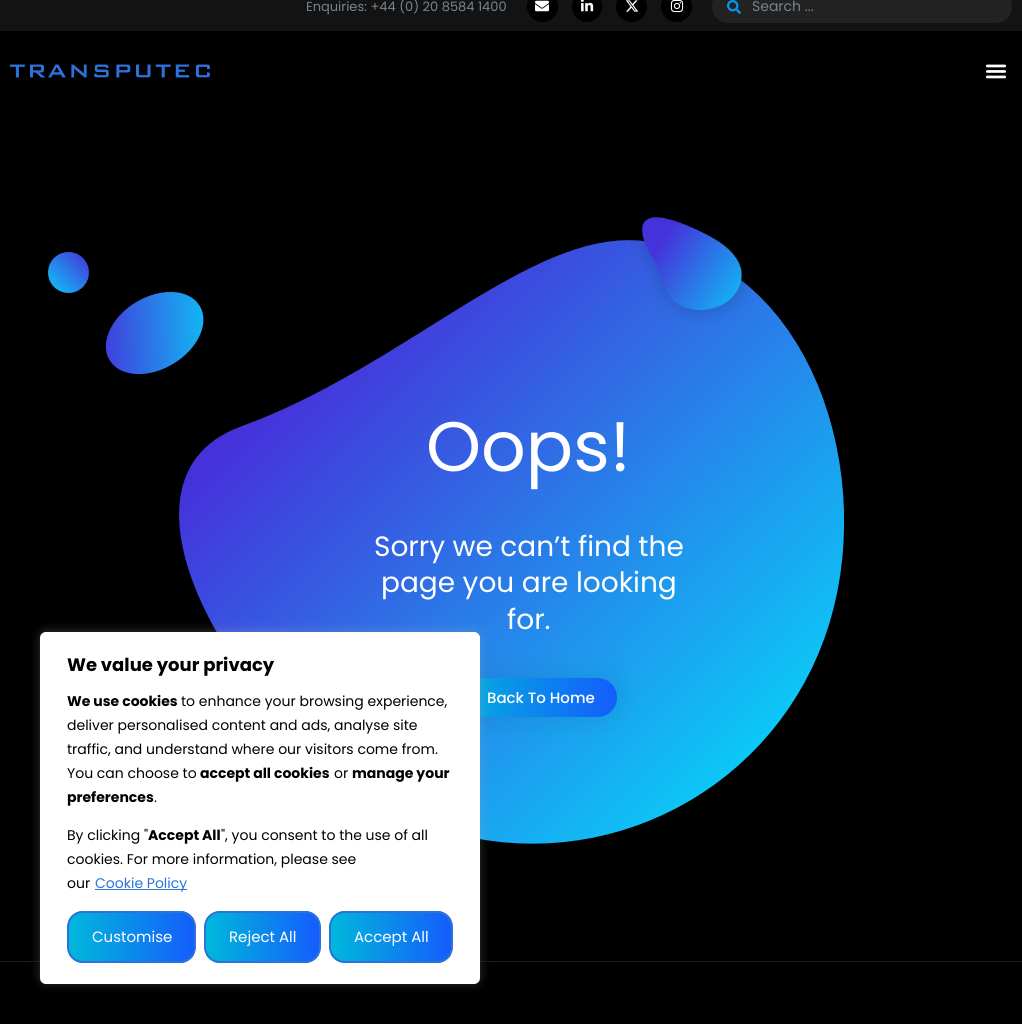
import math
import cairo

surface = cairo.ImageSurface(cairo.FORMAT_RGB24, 1022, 1024)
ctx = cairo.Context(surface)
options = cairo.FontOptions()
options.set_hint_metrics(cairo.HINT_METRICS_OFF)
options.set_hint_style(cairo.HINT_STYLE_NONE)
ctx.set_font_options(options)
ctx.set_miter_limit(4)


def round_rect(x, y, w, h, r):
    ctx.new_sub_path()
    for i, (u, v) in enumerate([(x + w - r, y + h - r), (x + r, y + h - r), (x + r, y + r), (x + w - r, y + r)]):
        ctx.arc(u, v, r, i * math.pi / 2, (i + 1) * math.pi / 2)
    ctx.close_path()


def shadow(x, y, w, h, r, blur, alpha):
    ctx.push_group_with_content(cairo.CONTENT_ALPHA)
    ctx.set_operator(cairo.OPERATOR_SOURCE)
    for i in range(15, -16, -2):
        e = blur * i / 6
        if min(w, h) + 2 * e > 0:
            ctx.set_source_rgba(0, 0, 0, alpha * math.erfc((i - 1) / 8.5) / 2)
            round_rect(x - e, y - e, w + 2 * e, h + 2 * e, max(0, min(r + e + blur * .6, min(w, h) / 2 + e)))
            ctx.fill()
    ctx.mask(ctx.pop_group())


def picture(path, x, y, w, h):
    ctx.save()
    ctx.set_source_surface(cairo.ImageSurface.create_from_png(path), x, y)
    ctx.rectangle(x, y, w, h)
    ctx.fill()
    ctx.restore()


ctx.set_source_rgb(0, 0, 0)
ctx.paint()
ctx.set_source_rgb(0.075, 0.075, 0.075)
ctx.rectangle(0, 0, 1022, 31)
ctx.fill()
ctx.select_font_face("Poppins")
ctx.set_font_size(13)
ctx.set_source_rgb(0.467, 0.51, 0.561)
ctx.move_to(306, 11)
ctx.show_text("Enquiries: +44 (0) 20 8584 1400")
ctx.set_source_rgb(0, 0, 0)
ctx.new_path()
ctx.arc(542.5, 6.5, 15.5, 0, 2 * math.pi)
ctx.fill()
picture("img1.png", 535, 0, 14, 12)
round_rect(572, -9, 30, 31, 15)
ctx.fill()
picture("img2.png", 580, 0, 14, 12)
ctx.arc(631.5, 6.5, 15.5, 0, 2 * math.pi)
ctx.fill()
picture("img3.png", 625, 0, 14, 12)
ctx.arc(676.5, 6.5, 15.5, 0, 2 * math.pi)
ctx.fill()
picture("img4.png", 670, 0, 14, 13)
ctx.set_source_rgb(0.133, 0.133, 0.133)
round_rect(712, -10, 300, 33, 16)
ctx.fill()
picture("img5.png", 727, 0, 14, 14)
ctx.set_font_size(14)
ctx.set_source_rgb(0.467, 0.51, 0.561)
ctx.move_to(752, 11)
ctx.show_text("Search ...")
picture("img6.png", 10, 64, 200, 14)
picture("img7.png", 985, 64, 22, 15)
picture("img8.png", 48, 252, 41, 41)
picture("img11.png", 179, 240, 666, 604)
picture("img9.png", 631, 217, 120, 105)
picture("img10.png", 105, 291, 99, 84)
ctx.set_font_size(70)
ctx.set_source_rgb(1, 1, 1)
ctx.move_to(426, 471)
ctx.show_text("Oops!")
ctx.set_font_size(28)
ctx.move_to(374, 556)
ctx.show_text("Sorry we can’t find the")
ctx.move_to(381, 592)
ctx.show_text("page you are looking")
ctx.move_to(507, 629)
ctx.show_text("for.")
ctx.set_source_rgb(0, 0, 0)
shadow(440, 678, 177, 39, 19.5, 15, 0.1)
gradient = cairo.LinearGradient(440, 698, 617, 698)
gradient.add_color_stop_rgba(0, 0, 0.722, 0.859, 1)
gradient.add_color_stop_rgba(1, 0.082, 0.365, 0.988, 1)
ctx.set_source(gradient)
round_rect(440, 678, 177, 39, 19.5)
ctx.fill()
ctx.select_font_face("Poppins Medium")
ctx.set_font_size(15)
ctx.set_source_rgb(1, 1, 1)
ctx.move_to(487, 703)
ctx.show_text("Back To Home")
ctx.set_source_rgb(0.067, 0.098, 0.157)
ctx.rectangle(0, 961, 1022, 1)
ctx.fill()
ctx.set_source_rgb(0.675, 0.671, 0.671)
shadow(40, 631, 440, 352, 6, 5, 0.3)
ctx.set_source_rgb(1, 1, 1)
round_rect(40.5, 632.5, 439, 351, 5.5)
ctx.fill_preserve()
ctx.set_line_width(1)
ctx.stroke()
ctx.select_font_face("Poppins", cairo.FONT_SLANT_NORMAL, cairo.FONT_WEIGHT_BOLD)
ctx.set_font_size(18)
ctx.set_source_rgb(0, 0, 0)
ctx.move_to(67, 671)
ctx.show_text("We value your privacy")
ctx.set_font_size(14)
ctx.move_to(67, 706)
ctx.show_text("We use cookies")
ctx.select_font_face("Poppins")
ctx.move_to(181, 706)
ctx.show_text("to enhance your browsing experience,")
ctx.move_to(67, 730)
ctx.show_text("deliver personalised content and ads, analyse site")
ctx.move_to(67, 754)
ctx.show_text("traffic, and understand where our visitors come from.")
ctx.move_to(67, 778)
ctx.show_text("You can choose to")
ctx.select_font_face("Poppins", cairo.FONT_SLANT_NORMAL, cairo.FONT_WEIGHT_BOLD)
ctx.move_to(200, 778)
ctx.show_text("accept all cookies")
ctx.select_font_face("Poppins")
ctx.move_to(334, 778)
ctx.show_text("or")
ctx.select_font_face("Poppins", cairo.FONT_SLANT_NORMAL, cairo.FONT_WEIGHT_BOLD)
ctx.move_to(352, 778)
ctx.show_text("manage your")
ctx.move_to(67, 802)
ctx.show_text("preferences")
ctx.select_font_face("Poppins")
ctx.move_to(154, 802)
ctx.show_text(".")
ctx.move_to(67, 840)
ctx.show_text("By clicking \"")
ctx.select_font_face("Poppins", cairo.FONT_SLANT_NORMAL, cairo.FONT_WEIGHT_BOLD)
ctx.move_to(148, 840)
ctx.show_text("Accept All")
ctx.select_font_face("Poppins")
ctx.move_to(221, 840)
ctx.show_text("\", you consent to the use of all")
ctx.move_to(67, 864)
ctx.show_text("cookies. For more information, please see")
ctx.move_to(67, 888)
ctx.show_text("our")
ctx.set_source_rgb(0.173, 0.447, 0.859)
ctx.rectangle(95, 889, 92, 1)
ctx.fill()
ctx.move_to(95, 888)
ctx.show_text("Cookie Policy")
ctx.save()
round_rect(67, 911, 129, 52, 16)
ctx.clip()
gradient = cairo.LinearGradient(69, 937, 194, 937)
gradient.add_color_stop_rgba(0, 0, 0.722, 0.859, 1)
gradient.add_color_stop_rgba(1, 0.082, 0.365, 0.988, 1)
ctx.set_source(gradient)
ctx.rectangle(69, 911, 125, 52)
ctx.fill()
ctx.restore()
round_rect(68, 912, 127, 50, 15)
ctx.set_line_width(2)
ctx.stroke()
ctx.set_font_size(15)
ctx.set_source_rgb(1, 1, 1)
ctx.move_to(92, 942)
ctx.show_text("Customise")
ctx.save()
round_rect(204, 911, 117, 52, 16)
ctx.clip()
gradient = cairo.LinearGradient(206, 937, 319, 937)
gradient.add_color_stop_rgba(0, 0, 0.722, 0.859, 1)
gradient.add_color_stop_rgba(1, 0.082, 0.365, 0.988, 1)
ctx.set_source(gradient)
ctx.rectangle(206, 911, 113, 52)
ctx.fill()
ctx.restore()
round_rect(205, 912, 115, 50, 15)
ctx.set_source_rgb(0.173, 0.447, 0.859)
ctx.stroke()
ctx.set_source_rgb(1, 1, 1)
ctx.move_to(229, 942)
ctx.show_text("Reject All")
ctx.save()
round_rect(329, 911, 124, 52, 16)
ctx.clip()
gradient = cairo.LinearGradient(331, 937, 451, 937)
gradient.add_color_stop_rgba(0, 0, 0.722, 0.859, 1)
gradient.add_color_stop_rgba(1, 0.082, 0.365, 0.988, 1)
ctx.set_source(gradient)
ctx.rectangle(331, 911, 120, 52)
ctx.fill()
ctx.restore()
round_rect(330, 912, 122, 50, 15)
ctx.set_source_rgb(0.173, 0.447, 0.859)
ctx.stroke()
ctx.set_source_rgb(1, 1, 1)
ctx.move_to(354, 942)
ctx.show_text("Accept All")
surface.write_to_png("page.png")
